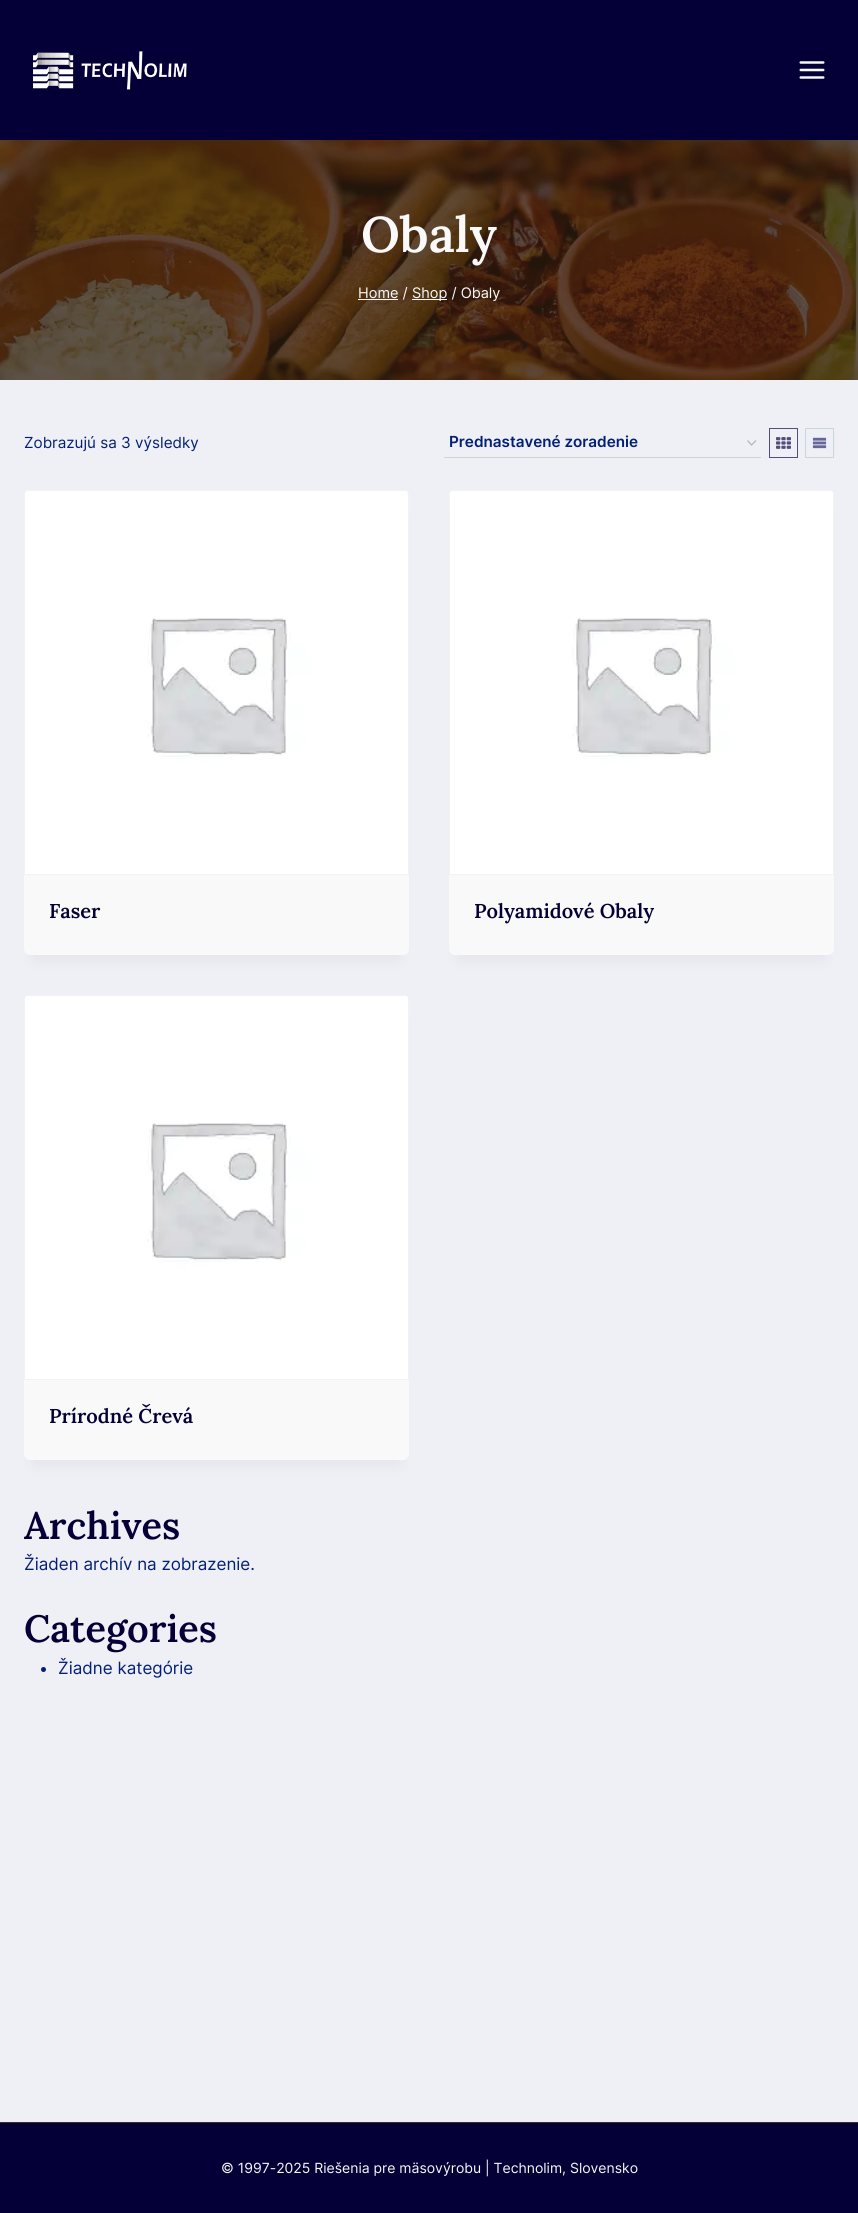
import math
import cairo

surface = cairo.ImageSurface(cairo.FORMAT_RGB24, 858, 2213)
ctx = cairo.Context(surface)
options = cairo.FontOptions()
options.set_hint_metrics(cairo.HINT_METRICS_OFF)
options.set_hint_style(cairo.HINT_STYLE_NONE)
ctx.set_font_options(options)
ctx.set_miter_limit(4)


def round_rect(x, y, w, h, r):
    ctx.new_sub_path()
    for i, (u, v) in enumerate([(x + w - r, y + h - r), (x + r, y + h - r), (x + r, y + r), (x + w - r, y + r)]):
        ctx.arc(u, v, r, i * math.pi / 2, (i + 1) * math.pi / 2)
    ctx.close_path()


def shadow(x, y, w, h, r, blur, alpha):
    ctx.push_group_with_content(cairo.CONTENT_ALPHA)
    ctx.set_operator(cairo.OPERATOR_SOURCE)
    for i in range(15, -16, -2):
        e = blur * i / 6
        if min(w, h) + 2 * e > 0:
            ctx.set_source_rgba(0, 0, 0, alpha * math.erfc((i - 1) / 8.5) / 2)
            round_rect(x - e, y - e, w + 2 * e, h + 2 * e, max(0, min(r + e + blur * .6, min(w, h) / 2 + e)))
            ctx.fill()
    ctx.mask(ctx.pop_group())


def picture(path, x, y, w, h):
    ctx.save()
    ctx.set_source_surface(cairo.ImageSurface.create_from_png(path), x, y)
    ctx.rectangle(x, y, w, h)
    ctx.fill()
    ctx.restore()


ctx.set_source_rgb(0.937, 0.937, 0.961)
ctx.paint()
ctx.set_source_rgb(0.016, 0, 0.216)
ctx.rectangle(0, 0, 858, 140)
ctx.fill()
picture("img1.png", 33, 51, 154, 39)
picture("img2.png", 799, 61, 26, 18)
picture("img3.png", 0, 140, 858, 240)
ctx.select_font_face("Lora SemiBold")
ctx.set_font_size(50)
ctx.set_source_rgb(0.973, 0.976, 0.98)
ctx.move_to(361, 252)
ctx.show_text("Obaly")
ctx.rectangle(358, 299, 40, 1)
ctx.fill()
ctx.select_font_face("Inter")
ctx.set_font_size(14.5)
ctx.move_to(358, 298)
ctx.show_text("Home /")
ctx.rectangle(412, 299, 35, 1)
ctx.fill()
ctx.move_to(412, 298)
ctx.show_text("Shop / Obaly")
ctx.set_font_size(15.25)
ctx.set_source_rgb(0.012, 0.125, 0.459)
ctx.move_to(24, 448)
ctx.show_text("Zobrazujú sa 3 výsledky")
ctx.new_path()
ctx.move_to(747.5, 440.5)
ctx.line_to(751.5, 445)
ctx.line_to(756, 440.5)
ctx.set_source_rgb(0.733, 0.733, 0.733)
ctx.set_line_width(1.4)
ctx.stroke()
ctx.set_source_rgb(0.796, 0.835, 0.878)
ctx.rectangle(444, 457, 317, 1)
ctx.fill()
ctx.select_font_face("Inter SemiBold")
ctx.set_source_rgb(0.012, 0.125, 0.459)
ctx.move_to(449, 447)
ctx.show_text("Prednastavené zoradenie")
ctx.rectangle(769.5, 428.5, 28, 29)
ctx.set_source_rgb(0.318, 0.302, 0.486)
ctx.set_line_width(1)
ctx.stroke()
picture("img4.png", 776, 437, 15, 12)
ctx.rectangle(805.5, 428.5, 28, 29)
ctx.set_source_rgb(0.796, 0.835, 0.878)
ctx.stroke()
picture("img5.png", 812, 437, 15, 12)
ctx.set_source_rgb(0, 0, 0)
shadow(34, 515, 365, 445, 0, 7.5, 0.05)
ctx.set_source_rgb(0.973, 0.976, 0.98)
round_rect(24, 490, 385, 465, 6)
ctx.fill()
ctx.set_source_rgb(0.949, 0.949, 0.949)
ctx.set_fill_rule(cairo.FILL_RULE_EVEN_ODD)
ctx.new_path()
ctx.move_to(24, 496)
ctx.line_to(24, 875)
ctx.line_to(409, 875)
ctx.line_to(409, 496)
ctx.line_to(408, 493)
ctx.line_to(408, 874)
ctx.line_to(25, 874)
ctx.line_to(25, 493)
ctx.close_path()
ctx.move_to(30, 490)
ctx.line_to(27, 491)
ctx.line_to(406, 491)
ctx.line_to(403, 490)
ctx.close_path()
ctx.fill()
picture("img6.png", 25, 491, 383, 383)
ctx.select_font_face("Lora SemiBold")
ctx.set_font_size(20)
ctx.set_source_rgb(0.016, 0, 0.216)
ctx.move_to(49, 918)
ctx.show_text("Faser")
ctx.set_source_rgb(0, 0, 0)
shadow(459, 515, 365, 445, 0, 7.5, 0.05)
ctx.set_source_rgb(0.973, 0.976, 0.98)
round_rect(449, 490, 385, 465, 6)
ctx.fill()
ctx.set_source_rgb(0.949, 0.949, 0.949)
ctx.new_path()
ctx.move_to(449, 496)
ctx.line_to(449, 875)
ctx.line_to(834, 875)
ctx.line_to(834, 496)
ctx.line_to(833, 493)
ctx.line_to(833, 874)
ctx.line_to(450, 874)
ctx.line_to(450, 493)
ctx.close_path()
ctx.move_to(455, 490)
ctx.line_to(452, 491)
ctx.line_to(831, 491)
ctx.line_to(828, 490)
ctx.close_path()
ctx.fill()
picture("img6.png", 450, 491, 383, 383)
ctx.set_source_rgb(0.016, 0, 0.216)
ctx.move_to(474, 918)
ctx.show_text("Polyamidové Obaly")
ctx.set_source_rgb(0, 0, 0)
shadow(34, 1020, 365, 445, 0, 7.5, 0.05)
ctx.set_source_rgb(0.973, 0.976, 0.98)
round_rect(24, 995, 385, 465, 6)
ctx.fill()
ctx.set_source_rgb(0.949, 0.949, 0.949)
ctx.new_path()
ctx.move_to(24, 1001)
ctx.line_to(24, 1380)
ctx.line_to(409, 1380)
ctx.line_to(409, 1001)
ctx.line_to(408, 998)
ctx.line_to(408, 1379)
ctx.line_to(25, 1379)
ctx.line_to(25, 998)
ctx.close_path()
ctx.move_to(30, 995)
ctx.line_to(27, 996)
ctx.line_to(406, 996)
ctx.line_to(403, 995)
ctx.close_path()
ctx.fill()
picture("img6.png", 25, 996, 383, 383)
ctx.set_source_rgb(0.016, 0, 0.216)
ctx.move_to(49, 1423)
ctx.show_text("Prírodné Črevá")
ctx.set_font_size(38)
ctx.move_to(24, 1539)
ctx.show_text("Archives")
ctx.select_font_face("Inter")
ctx.set_font_size(17)
ctx.set_source_rgb(0.012, 0.125, 0.459)
ctx.move_to(24, 1570)
ctx.show_text("Žiaden archív na zobrazenie.")
ctx.select_font_face("Lora SemiBold")
ctx.set_font_size(38)
ctx.set_source_rgb(0.016, 0, 0.216)
ctx.move_to(24, 1642)
ctx.show_text("Categories")
ctx.set_source_rgb(0.012, 0.125, 0.459)
ctx.new_path()
ctx.arc(43.5, 1669.5, 2.5, 0, 2 * math.pi)
ctx.fill()
ctx.select_font_face("Inter")
ctx.set_font_size(17)
ctx.move_to(58, 1674)
ctx.show_text("Žiadne kategórie")
ctx.set_source_rgb(0.016, 0, 0.216)
ctx.rectangle(0, 2123, 858, 90)
ctx.fill()
ctx.set_source_rgb(0.247, 0.192, 0.11)
ctx.rectangle(0, 2122, 858, 1)
ctx.fill()
ctx.set_font_size(14)
ctx.set_source_rgb(0.973, 0.976, 0.98)
ctx.move_to(221, 2173)
ctx.show_text("© 1997-2025 Riešenia pre mäsovýrobu | Technolim, Slovensko")
surface.write_to_png("page.png")
